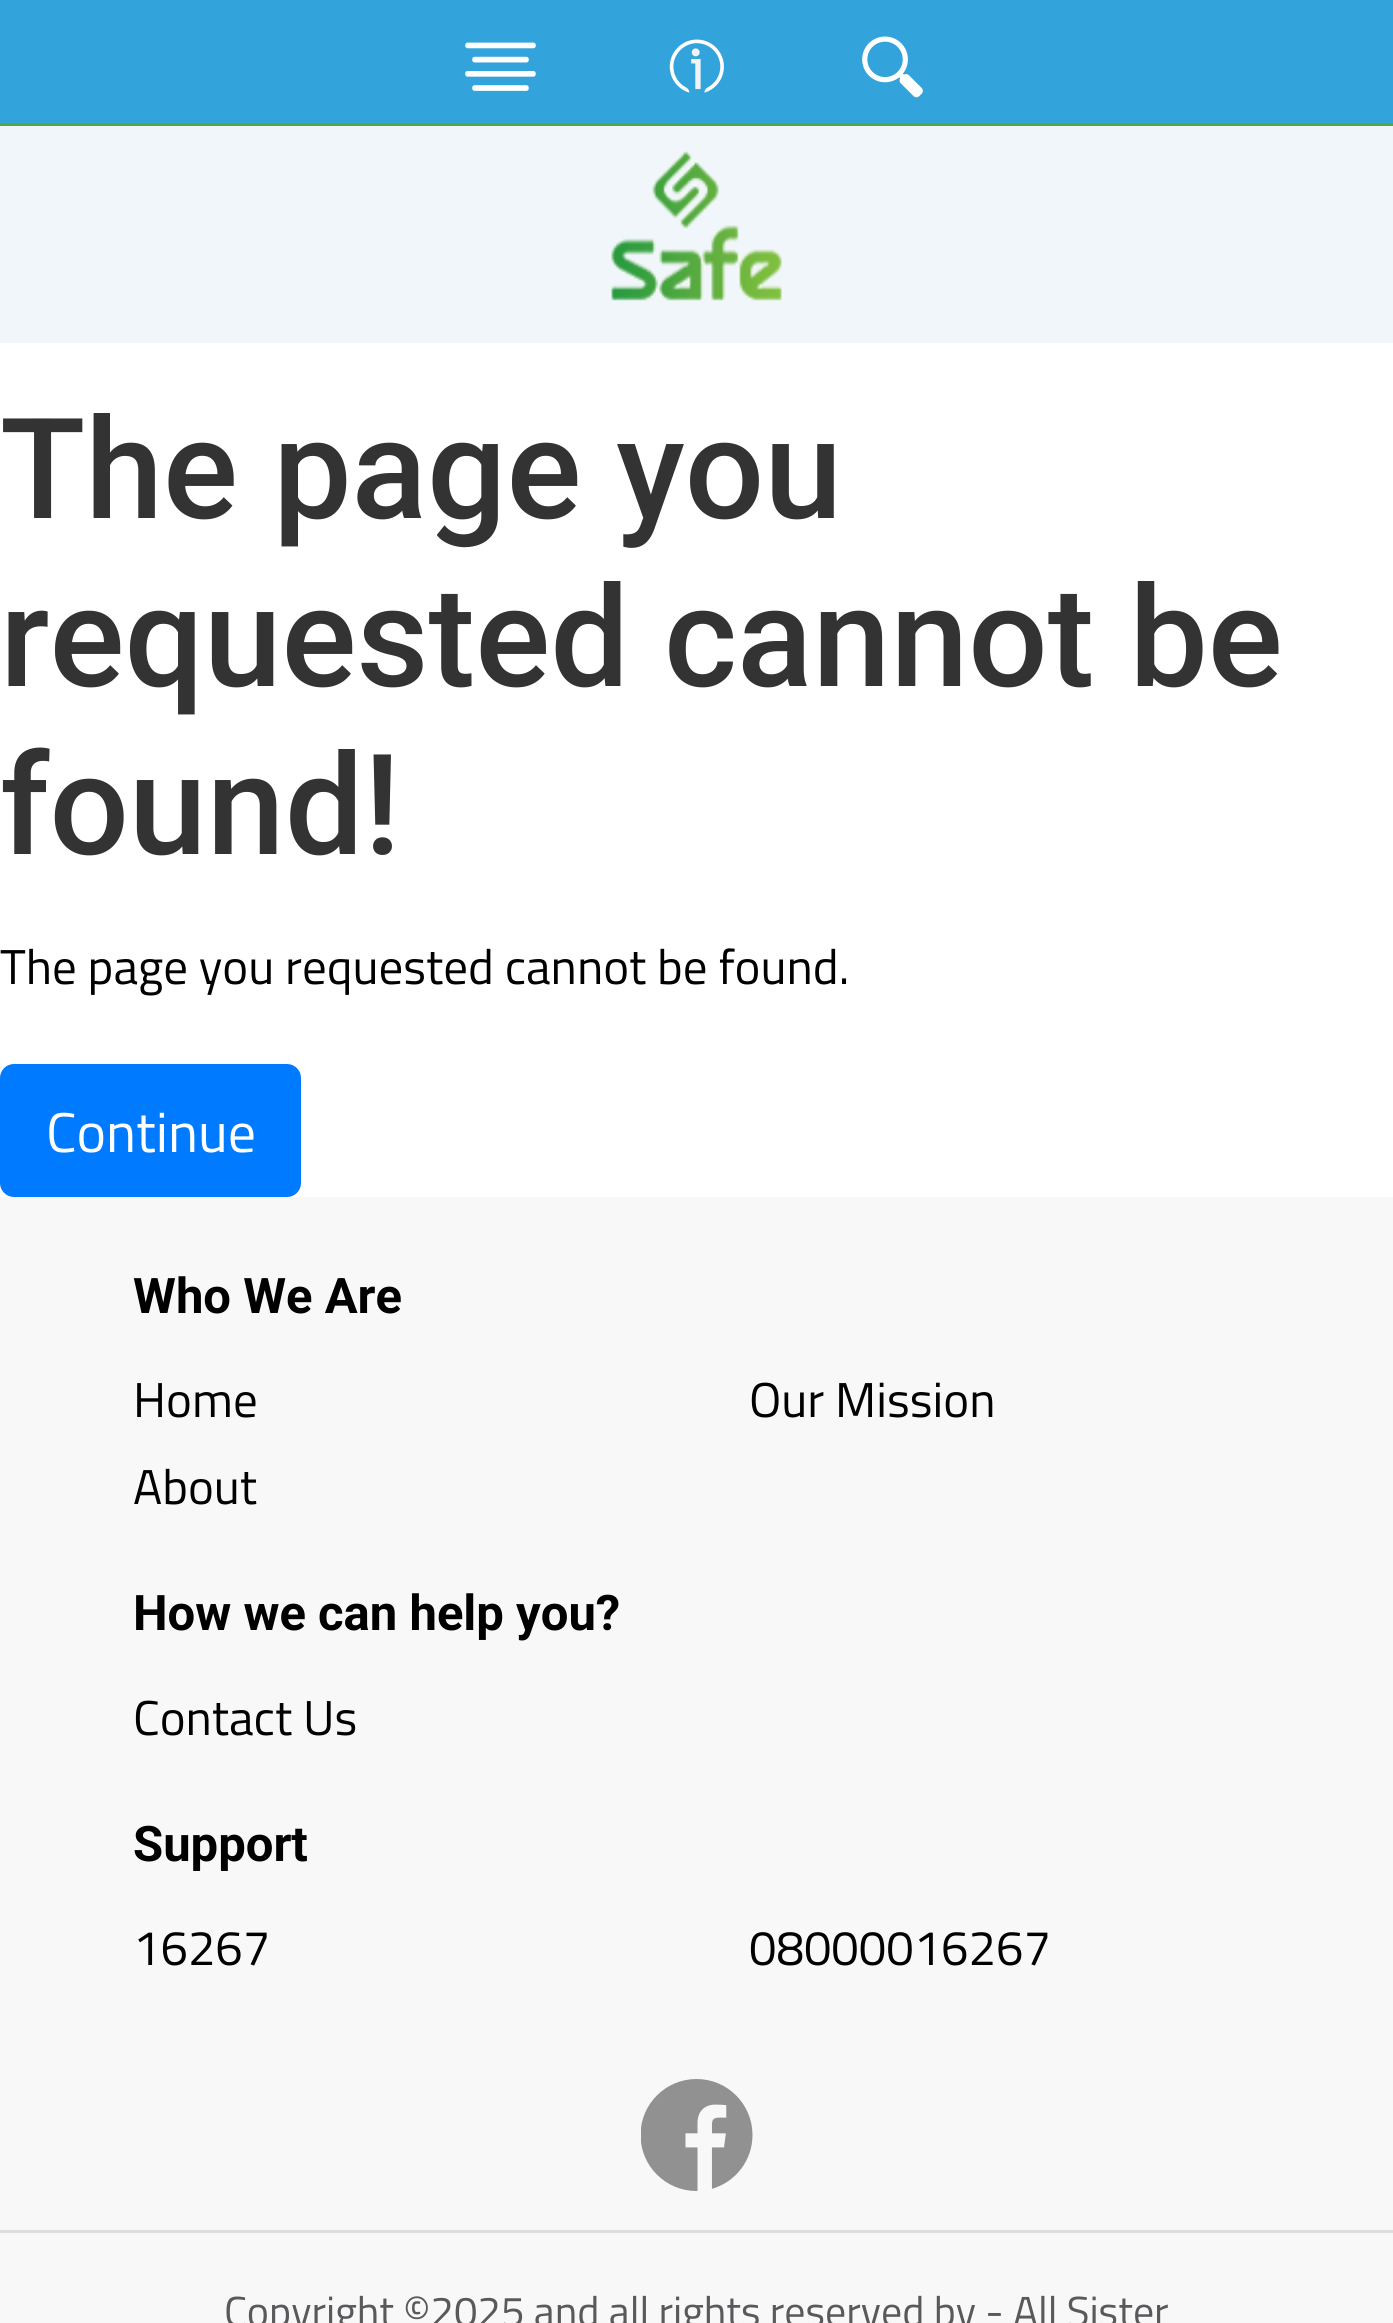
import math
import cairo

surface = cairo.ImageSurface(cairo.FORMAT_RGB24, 1393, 2323)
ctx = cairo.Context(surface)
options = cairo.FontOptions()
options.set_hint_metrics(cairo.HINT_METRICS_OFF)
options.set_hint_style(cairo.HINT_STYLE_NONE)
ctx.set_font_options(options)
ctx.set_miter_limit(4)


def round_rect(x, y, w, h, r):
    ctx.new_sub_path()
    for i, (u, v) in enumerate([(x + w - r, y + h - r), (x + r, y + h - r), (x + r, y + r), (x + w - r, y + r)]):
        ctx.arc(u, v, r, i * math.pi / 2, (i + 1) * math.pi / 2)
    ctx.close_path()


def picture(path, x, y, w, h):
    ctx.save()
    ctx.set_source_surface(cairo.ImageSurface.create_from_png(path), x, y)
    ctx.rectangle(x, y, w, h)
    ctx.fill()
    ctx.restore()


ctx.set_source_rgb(1, 1, 1)
ctx.paint()
ctx.set_source_rgb(0.322, 0.663, 0.247)
ctx.rectangle(0, 123, 1393, 3)
ctx.fill()
ctx.set_source_rgb(0.2, 0.639, 0.863)
ctx.rectangle(0, 0, 1393, 123)
ctx.fill()
picture("img1.png", 465, 42, 71, 49)
picture("img2.png", 669, 39, 55, 54)
picture("img3.png", 862, 36, 61, 62)
ctx.set_source_rgb(0.941, 0.961, 0.973)
ctx.rectangle(0, 126, 1393, 217)
ctx.fill()
picture("img4.png", 611, 151, 171, 150)
ctx.select_font_face("Roboto Medium")
ctx.set_font_size(140)
ctx.set_source_rgb(0.2, 0.2, 0.2)
ctx.move_to(0, 518)
ctx.show_text("The page you")
ctx.move_to(0, 686)
ctx.show_text("requested cannot be")
ctx.move_to(0, 854)
ctx.show_text("found!")
ctx.select_font_face("Titillium Web")
ctx.set_font_size(49)
ctx.set_source_rgb(0, 0, 0)
ctx.move_to(0, 984)
ctx.show_text("The page you requested cannot be found.")
ctx.set_source_rgb(0, 0.482, 1)
round_rect(2, 1066, 297, 129, 12)
ctx.fill_preserve()
ctx.set_line_width(4)
ctx.stroke()
ctx.set_font_size(56)
ctx.set_source_rgb(1, 1, 1)
ctx.move_to(46, 1152)
ctx.show_text("Continue")
ctx.set_source_rgb(0.969, 0.969, 0.969)
ctx.rectangle(0, 1197, 1393, 1033)
ctx.fill()
ctx.select_font_face("Roboto", cairo.FONT_SLANT_NORMAL, cairo.FONT_WEIGHT_BOLD)
ctx.set_font_size(49)
ctx.set_source_rgb(0, 0, 0)
ctx.move_to(133, 1313)
ctx.show_text("Who We Are")
ctx.select_font_face("Titillium Web")
ctx.move_to(133, 1417)
ctx.show_text("Home")
ctx.move_to(133, 1504)
ctx.show_text("About")
ctx.move_to(749, 1417)
ctx.show_text("Our Mission")
ctx.select_font_face("Roboto", cairo.FONT_SLANT_NORMAL, cairo.FONT_WEIGHT_BOLD)
ctx.move_to(133, 1630)
ctx.show_text("How we can help you?")
ctx.select_font_face("Titillium Web")
ctx.move_to(133, 1735)
ctx.show_text("Contact Us")
ctx.select_font_face("Roboto", cairo.FONT_SLANT_NORMAL, cairo.FONT_WEIGHT_BOLD)
ctx.move_to(133, 1861)
ctx.show_text("Support")
ctx.select_font_face("Titillium Web")
ctx.move_to(133, 1965)
ctx.show_text("16267")
ctx.move_to(749, 1965)
ctx.show_text("08000016267")
picture("img5.png", 641, 2079, 112, 112)
ctx.set_source_rgb(0.867, 0.867, 0.867)
ctx.rectangle(0, 2230, 1393, 3)
ctx.fill()
ctx.set_source_rgb(0.969, 0.969, 0.969)
ctx.rectangle(0, 2233, 1393, 90)
ctx.fill()
ctx.set_font_size(42)
ctx.set_source_rgb(0.349, 0.349, 0.361)
ctx.move_to(224, 2326)
ctx.show_text("Copyright ©2025 and all rights reserved by - All Sister")
surface.write_to_png("page.png")
